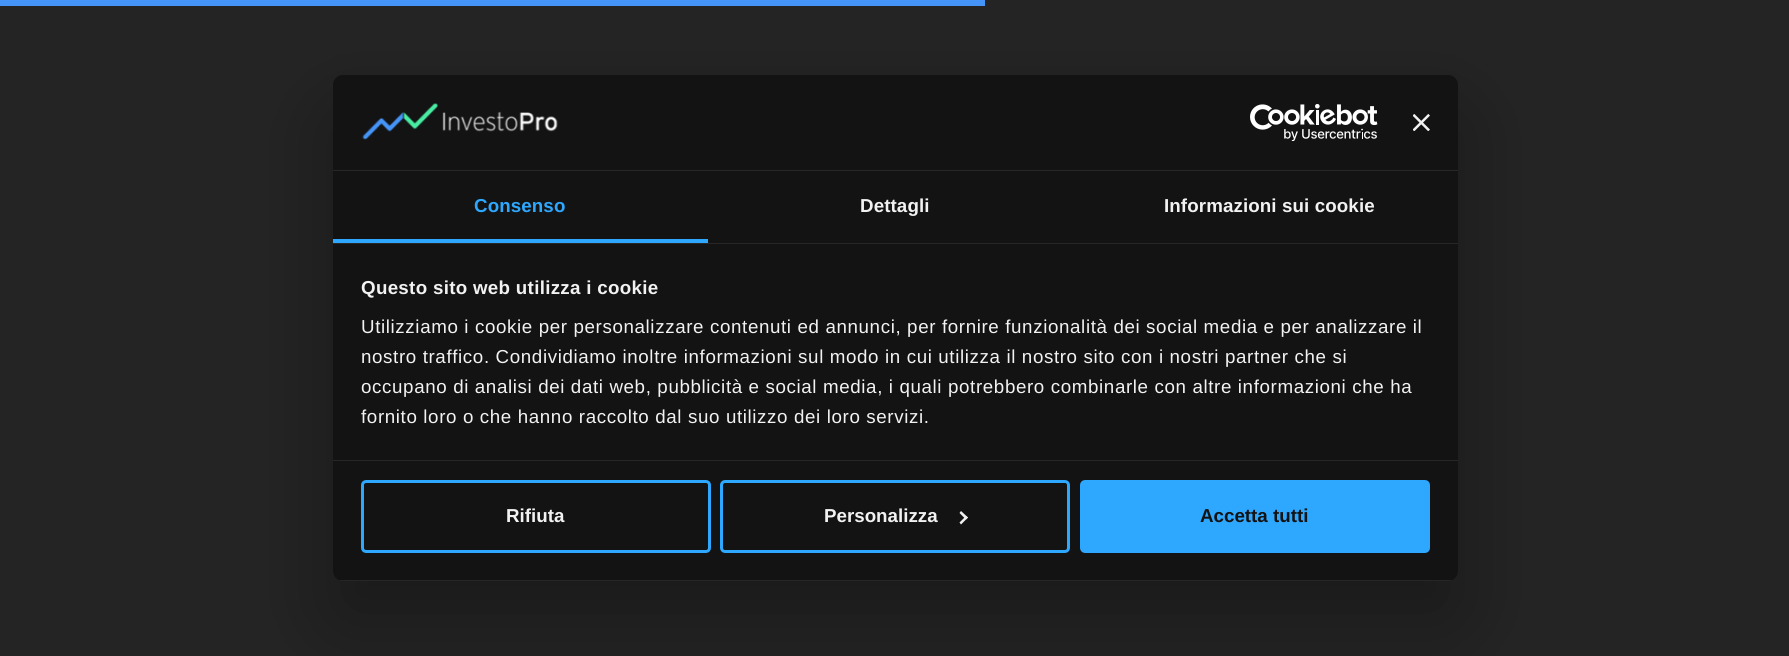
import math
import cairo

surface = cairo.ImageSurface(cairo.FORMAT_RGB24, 1789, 656)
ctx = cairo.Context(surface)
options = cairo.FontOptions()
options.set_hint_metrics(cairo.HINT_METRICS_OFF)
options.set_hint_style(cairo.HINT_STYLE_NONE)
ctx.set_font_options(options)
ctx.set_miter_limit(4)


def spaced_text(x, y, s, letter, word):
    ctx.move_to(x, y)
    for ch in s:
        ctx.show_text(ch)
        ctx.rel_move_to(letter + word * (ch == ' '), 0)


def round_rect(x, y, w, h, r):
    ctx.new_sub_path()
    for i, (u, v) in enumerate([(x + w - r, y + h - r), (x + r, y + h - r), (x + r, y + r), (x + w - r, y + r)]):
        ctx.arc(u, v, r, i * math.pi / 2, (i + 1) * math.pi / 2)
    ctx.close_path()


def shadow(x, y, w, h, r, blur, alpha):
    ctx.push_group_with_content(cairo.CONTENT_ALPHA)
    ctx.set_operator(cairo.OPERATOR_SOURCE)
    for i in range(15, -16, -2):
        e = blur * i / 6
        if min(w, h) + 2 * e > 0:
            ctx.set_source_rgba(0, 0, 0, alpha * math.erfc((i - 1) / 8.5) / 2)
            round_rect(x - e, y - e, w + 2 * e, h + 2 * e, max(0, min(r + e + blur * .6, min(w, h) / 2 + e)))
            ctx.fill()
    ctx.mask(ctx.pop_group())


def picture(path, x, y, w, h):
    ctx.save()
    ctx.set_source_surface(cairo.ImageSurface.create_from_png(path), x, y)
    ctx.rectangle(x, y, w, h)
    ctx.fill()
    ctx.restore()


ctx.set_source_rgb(0.141, 0.141, 0.141)
ctx.paint()
ctx.set_source_rgb(0.271, 0.584, 0.969)
ctx.rectangle(0, 0, 985, 6)
ctx.fill()
ctx.set_source_rgb(0, 0, 0)
shadow(333, 115, 1125, 506, 10, 42.5, 0.3)
ctx.set_source_rgb(0.078, 0.078, 0.078)
round_rect(333, 75, 1125, 506, 10)
ctx.fill()
ctx.set_source_rgb(0.153, 0.153, 0.153)
ctx.rectangle(333, 170, 1125, 1)
ctx.fill()
picture("img1.png", 362, 103, 196, 37)
picture("img2.png", 1250, 104, 128, 37)
picture("img3.png", 1413, 114, 17, 17)
ctx.rectangle(333, 243, 1125, 1)
ctx.fill()
ctx.set_source_rgb(0.18, 0.655, 1)
ctx.rectangle(333, 239, 375, 4)
ctx.fill()
ctx.select_font_face("Liberation Sans", cairo.FONT_SLANT_NORMAL, cairo.FONT_WEIGHT_BOLD)
ctx.set_font_size(18.75)
spaced_text(474, 212, "Consenso", 0.1, 0)
ctx.set_source_rgb(0.949, 0.949, 0.949)
spaced_text(860, 212, "Dettagli", 0.1, 0)
spaced_text(1164, 212, "Informazioni sui cookie", 0.1, 0)
ctx.set_source_rgb(0.153, 0.153, 0.153)
ctx.rectangle(333, 460, 1125, 1)
ctx.fill()
ctx.set_source_rgb(0.949, 0.949, 0.949)
spaced_text(361, 294, "Questo sito web utilizza i cookie", 0.3, 0)
ctx.select_font_face("Liberation Sans")
spaced_text(361, 333, "Utilizziamo i cookie per personalizzare contenuti ed annunci, per fornire funzionalità dei social media e per analizzare il", 0.62, 0)
spaced_text(361, 363, "nostro traffico. Condividiamo inoltre informazioni sul modo in cui utilizza il nostro sito con i nostri partner che si", 0.62, 0)
spaced_text(361, 393, "occupano di analisi dei dati web, pubblicità e social media, i quali potrebbero combinarle con altre informazioni che ha", 0.62, 0)
spaced_text(361, 423, "fornito loro o che hanno raccolto dal suo utilizzo dei loro servizi.", 0.62, 0)
ctx.save()
round_rect(333, 75, 1125, 506, 10)
ctx.clip()
ctx.set_source_rgba(1, 1, 1, 0.08)
ctx.rectangle(333, 580, 1125, 1)
ctx.fill()
ctx.restore()
round_rect(362.5, 481.5, 347, 70, 3.5)
ctx.set_source_rgb(0.18, 0.655, 1)
ctx.set_line_width(3)
ctx.stroke()
ctx.select_font_face("Liberation Sans", cairo.FONT_SLANT_NORMAL, cairo.FONT_WEIGHT_BOLD)
ctx.set_source_rgb(0.949, 0.949, 0.949)
ctx.move_to(506, 522)
ctx.show_text("Rifiuta")
round_rect(721.5, 481.5, 347, 70, 3.5)
ctx.set_source_rgb(0.18, 0.655, 1)
ctx.stroke()
ctx.set_source_rgb(0.949, 0.949, 0.949)
ctx.move_to(824, 522)
ctx.show_text("Personalizza")
ctx.new_path()
ctx.move_to(961, 511)
ctx.line_to(968, 517.5)
ctx.line_to(966, 519.5)
ctx.line_to(959.5, 513)
ctx.close_path()
ctx.fill()
ctx.new_path()
ctx.move_to(966, 516)
ctx.line_to(968, 517.5)
ctx.line_to(961, 524.5)
ctx.line_to(959.5, 522.5)
ctx.close_path()
ctx.fill()
ctx.set_source_rgb(0.18, 0.655, 1)
round_rect(1081.5, 481.5, 347, 70, 3.5)
ctx.fill_preserve()
ctx.stroke()
ctx.set_source_rgb(0.078, 0.078, 0.078)
ctx.move_to(1200, 522)
ctx.show_text("Accetta tutti")
surface.write_to_png("page.png")
